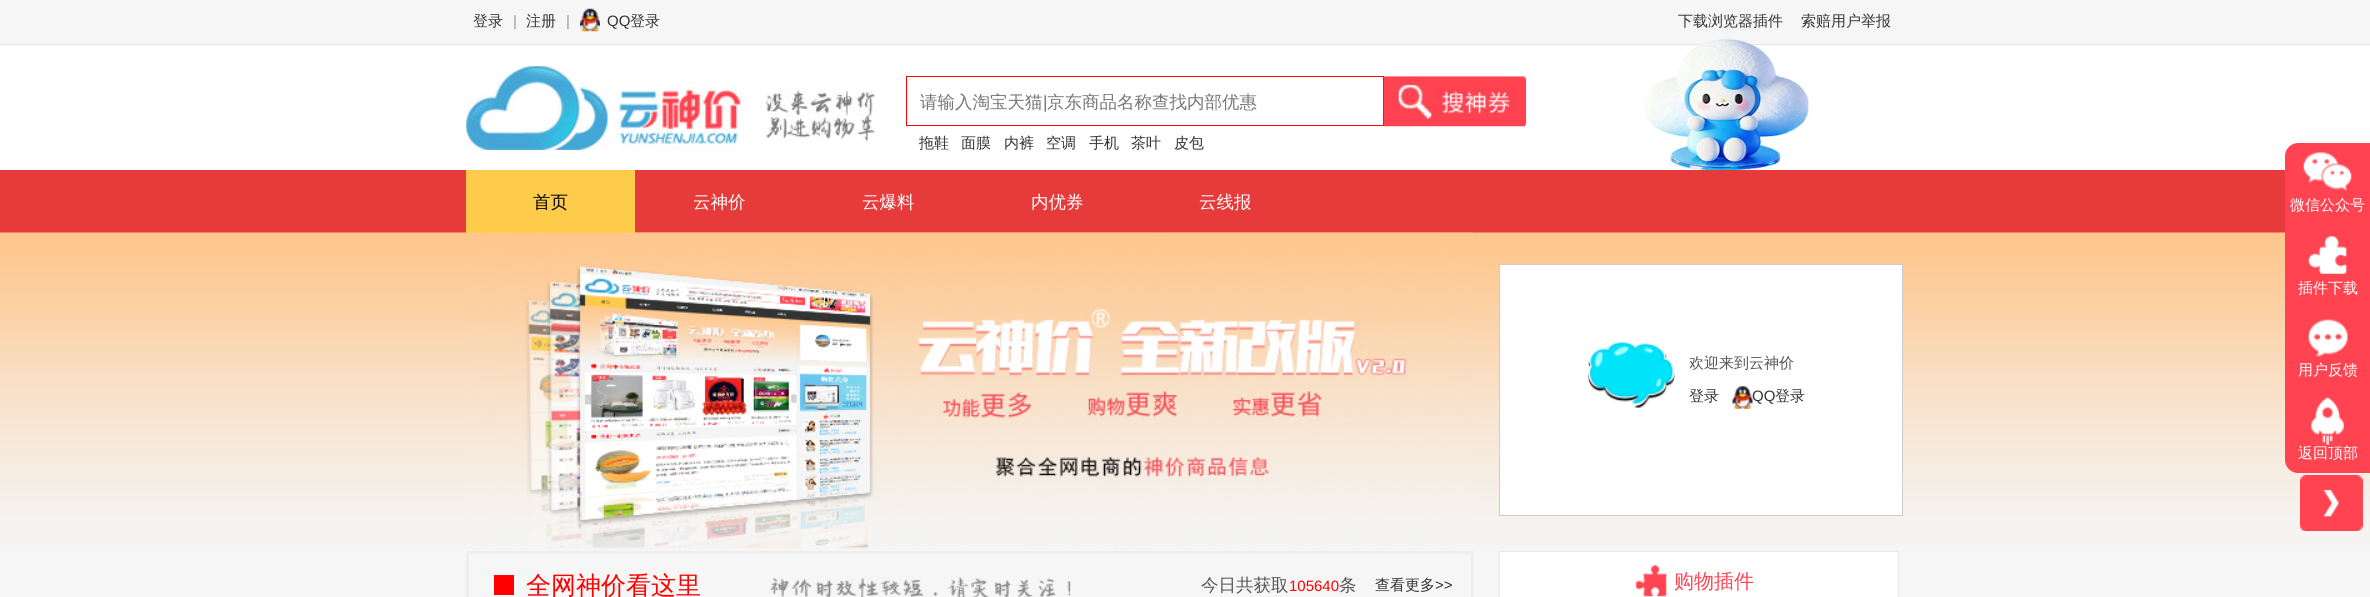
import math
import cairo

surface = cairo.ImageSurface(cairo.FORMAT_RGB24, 2370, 597)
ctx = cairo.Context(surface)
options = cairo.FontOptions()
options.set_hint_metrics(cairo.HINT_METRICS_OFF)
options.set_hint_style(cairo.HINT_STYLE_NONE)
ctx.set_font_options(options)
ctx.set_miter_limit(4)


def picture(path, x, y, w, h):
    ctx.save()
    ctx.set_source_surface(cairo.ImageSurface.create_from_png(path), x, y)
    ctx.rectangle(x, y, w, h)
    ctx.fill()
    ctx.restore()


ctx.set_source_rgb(1, 1, 1)
ctx.paint()
ctx.set_source_rgb(0.961, 0.961, 0.961)
ctx.rectangle(0, 0, 2370, 44)
ctx.fill()
ctx.set_source_rgb(0.902, 0.902, 0.902)
ctx.rectangle(0, 44, 2370, 1)
ctx.fill()
ctx.select_font_face("WenQuanYi Zen Hei Medium")
ctx.set_font_size(15)
ctx.set_source_rgb(0.2, 0.2, 0.2)
ctx.move_to(473, 26)
ctx.show_text("登录")
ctx.select_font_face("Liberation Sans")
ctx.set_source_rgb(0.6, 0.6, 0.6)
ctx.move_to(513, 26)
ctx.show_text("|")
ctx.select_font_face("WenQuanYi Zen Hei Medium")
ctx.set_source_rgb(0.2, 0.2, 0.2)
ctx.move_to(526, 26)
ctx.show_text("注册")
ctx.select_font_face("Liberation Sans")
ctx.set_source_rgb(0.6, 0.6, 0.6)
ctx.move_to(566, 26)
ctx.show_text("|")
picture("img1.png", 580, 8, 20, 24)
ctx.set_source_rgb(0.2, 0.2, 0.2)
ctx.move_to(607, 26)
ctx.show_text("QQ")
ctx.select_font_face("WenQuanYi Zen Hei Medium")
ctx.move_to(630, 26)
ctx.show_text("登录")
ctx.move_to(1678, 26)
ctx.show_text("下载浏览器插件")
ctx.move_to(1801, 26)
ctx.show_text("索赔用户举报")
picture("img2.png", 466, 66, 409, 84)
ctx.rectangle(906.5, 76.5, 477, 49)
ctx.set_source_rgb(1, 0, 0)
ctx.set_line_width(1)
ctx.stroke()
ctx.set_font_size(17.5)
ctx.set_source_rgb(0.459, 0.459, 0.459)
ctx.move_to(920, 108)
ctx.show_text("请输入淘宝天猫")
ctx.select_font_face("Liberation Sans")
ctx.move_to(1043, 108)
ctx.show_text("|")
ctx.select_font_face("WenQuanYi Zen Hei Medium")
ctx.move_to(1047, 108)
ctx.show_text("京东商品名称查找内部优惠")
picture("img3.png", 1383, 76, 144, 51)
ctx.set_font_size(15)
ctx.set_source_rgb(0.2, 0.2, 0.2)
ctx.move_to(919, 148)
ctx.show_text("拖鞋")
ctx.move_to(961, 148)
ctx.show_text("面膜")
ctx.move_to(1004, 148)
ctx.show_text("内裤")
ctx.move_to(1046, 148)
ctx.show_text("空调")
ctx.move_to(1089, 148)
ctx.show_text("手机")
ctx.move_to(1131, 148)
ctx.show_text("茶叶")
ctx.move_to(1174, 148)
ctx.show_text("皮包")
picture("img4.png", 1644, 38, 165, 132)
ctx.set_source_rgb(0.906, 0.231, 0.231)
ctx.rectangle(0, 170, 2285, 63)
ctx.fill()
picture("img5.png", 0, 232, 2370, 319)
ctx.set_source_rgb(0.996, 0.796, 0.294)
ctx.rectangle(466, 170, 169, 63)
ctx.fill()
ctx.set_font_size(17.5)
ctx.set_source_rgb(0, 0, 0)
ctx.move_to(533, 208)
ctx.show_text("首页")
ctx.set_source_rgb(1, 1, 1)
ctx.move_to(693, 208)
ctx.show_text("云神价")
ctx.move_to(862, 208)
ctx.show_text("云爆料")
ctx.move_to(1031, 208)
ctx.show_text("内优券")
ctx.move_to(1199, 208)
ctx.show_text("云线报")
picture("img6.png", 466, 232, 1008, 316)
ctx.rectangle(1499.5, 264.5, 403, 251)
ctx.fill_preserve()
ctx.set_source_rgb(0.8, 0.8, 0.8)
ctx.stroke()
picture("img7.png", 1587, 342, 88, 66)
ctx.save()
ctx.rectangle(1690, 353, 121, 21)
ctx.clip()
ctx.set_font_size(15)
ctx.set_source_rgb(0.333, 0.333, 0.333)
ctx.move_to(1689, 368)
ctx.show_text("欢迎来到云神价")
ctx.restore()
ctx.set_font_size(15)
ctx.set_source_rgb(0.2, 0.2, 0.2)
ctx.move_to(1689, 401)
ctx.show_text("登录")
picture("img8.png", 1732, 386, 21, 23)
ctx.select_font_face("Liberation Sans")
ctx.move_to(1752, 401)
ctx.show_text("QQ")
ctx.select_font_face("WenQuanYi Zen Hei Medium")
ctx.move_to(1775, 401)
ctx.show_text("登录")
ctx.set_source_rgb(1, 0.263, 0.318)
ctx.new_path()
ctx.move_to(2298, 143)
ctx.line_to(2370, 143)
ctx.line_to(2370, 225)
ctx.line_to(2285, 225)
ctx.line_to(2285, 156)
ctx.curve_to(2285, 149, 2291, 143, 2298, 143)
ctx.close_path()
ctx.fill()
picture("img9.png", 2303, 151, 49, 40)
ctx.set_source_rgb(1, 1, 1)
ctx.move_to(2290, 210)
ctx.show_text("微信公众号")
ctx.set_source_rgb(1, 0.263, 0.318)
ctx.rectangle(2285, 225, 85, 165)
ctx.fill()
picture("img10.png", 2308, 236, 39, 38)
ctx.set_source_rgb(1, 1, 1)
ctx.move_to(2298, 293)
ctx.show_text("插件下载")
picture("img11.png", 2308, 319, 40, 38)
ctx.move_to(2298, 375)
ctx.show_text("用户反馈")
ctx.set_source_rgb(1, 0.263, 0.318)
ctx.new_path()
ctx.move_to(2285, 390)
ctx.line_to(2370, 390)
ctx.line_to(2370, 473)
ctx.line_to(2298, 473)
ctx.curve_to(2291, 473, 2285, 467, 2285, 460)
ctx.close_path()
ctx.fill()
picture("img12.png", 2311, 397, 33, 48)
ctx.set_source_rgb(1, 1, 1)
ctx.move_to(2298, 458)
ctx.show_text("返回顶部")
picture("img13.png", 2300, 475, 63, 56)
ctx.set_source_rgb(0.961, 0.961, 0.961)
ctx.rectangle(0, 551, 2370, 46)
ctx.fill()
picture("img14.png", 770, 577, 301, 20)
ctx.rectangle(467.5, 552.5, 1005, 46)
ctx.set_source_rgb(0.933, 0.933, 0.933)
ctx.set_line_width(3)
ctx.stroke()
ctx.set_source_rgb(1, 0, 0)
ctx.rectangle(494, 575, 20, 20)
ctx.fill()
ctx.set_font_size(25)
ctx.move_to(526, 594)
ctx.show_text("全网神价看这里")
ctx.set_font_size(17.5)
ctx.set_source_rgb(0.333, 0.333, 0.333)
ctx.move_to(1201, 591)
ctx.show_text("今日共获取")
ctx.select_font_face("Liberation Sans")
ctx.set_font_size(15)
ctx.set_source_rgb(1, 0, 0)
ctx.move_to(1289, 591)
ctx.show_text("105640")
ctx.select_font_face("WenQuanYi Zen Hei Medium")
ctx.set_font_size(17.5)
ctx.set_source_rgb(0.333, 0.333, 0.333)
ctx.move_to(1339, 591)
ctx.show_text("条")
ctx.set_font_size(15)
ctx.set_source_rgb(0.2, 0.2, 0.2)
ctx.move_to(1375, 590)
ctx.show_text("查看更多")
ctx.select_font_face("Liberation Sans")
ctx.move_to(1435, 590)
ctx.show_text(">>")
ctx.set_source_rgb(1, 1, 1)
ctx.rectangle(1499.5, 551.5, 399, 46)
ctx.fill_preserve()
ctx.set_source_rgb(0.914, 0.914, 0.914)
ctx.set_line_width(1)
ctx.stroke()
picture("img15.png", 1636, 565, 31, 32)
ctx.select_font_face("WenQuanYi Zen Hei Medium")
ctx.set_font_size(20)
ctx.set_source_rgb(1, 0.263, 0.318)
ctx.move_to(1674, 588)
ctx.show_text("购物插件")
surface.write_to_png("page.png")
